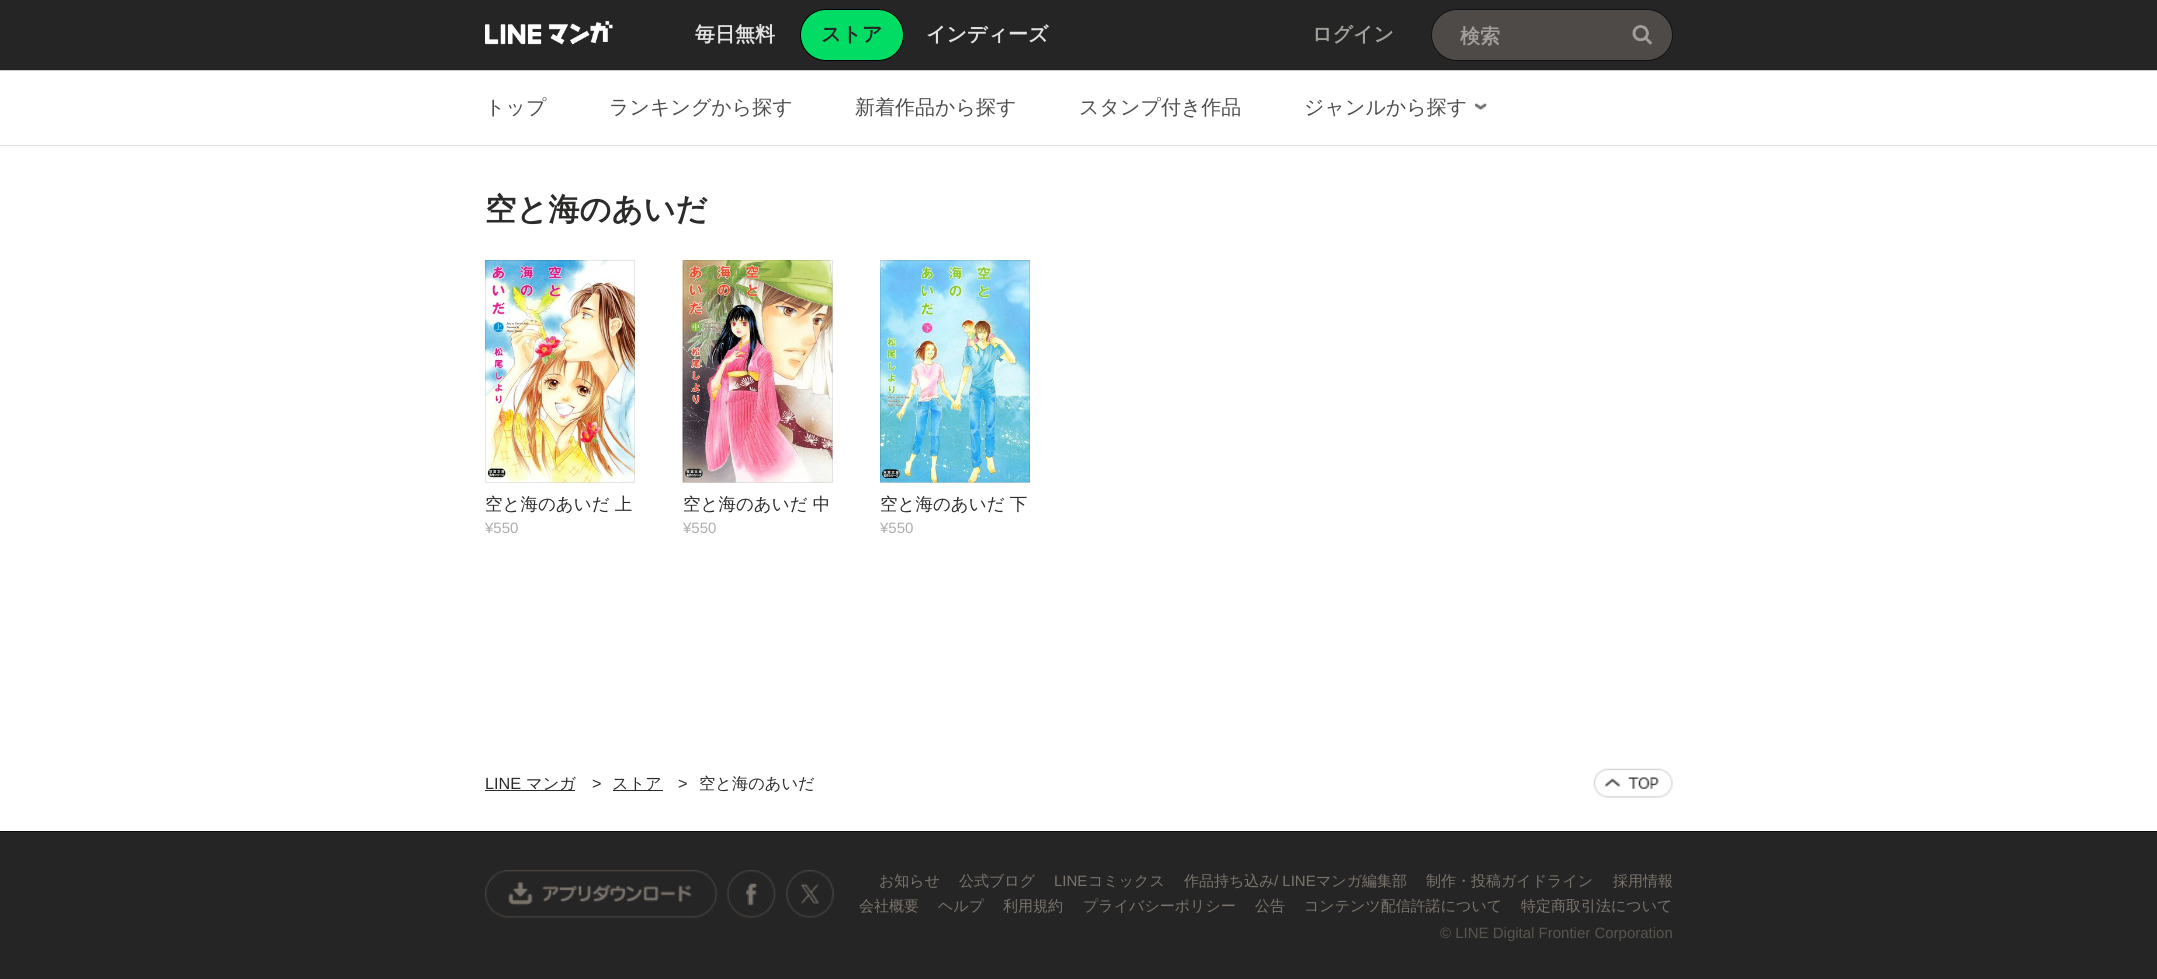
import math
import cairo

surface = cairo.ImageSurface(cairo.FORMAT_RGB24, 2157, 979)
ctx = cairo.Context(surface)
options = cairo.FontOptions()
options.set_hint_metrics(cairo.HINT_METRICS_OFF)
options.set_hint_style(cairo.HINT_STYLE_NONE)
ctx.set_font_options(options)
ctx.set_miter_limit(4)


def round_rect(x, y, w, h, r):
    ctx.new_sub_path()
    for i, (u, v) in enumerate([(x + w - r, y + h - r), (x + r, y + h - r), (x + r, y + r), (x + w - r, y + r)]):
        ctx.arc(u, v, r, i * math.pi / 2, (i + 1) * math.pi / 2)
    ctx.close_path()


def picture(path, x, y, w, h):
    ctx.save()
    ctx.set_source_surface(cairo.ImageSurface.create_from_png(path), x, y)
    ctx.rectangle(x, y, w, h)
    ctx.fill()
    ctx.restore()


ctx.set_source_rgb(1, 1, 1)
ctx.paint()
ctx.set_source_rgb(0.149, 0.145, 0.145)
ctx.rectangle(0, 0, 2157, 70)
ctx.fill()
picture("img1.png", 485, 21, 128, 24)
ctx.select_font_face("WenQuanYi Zen Hei", cairo.FONT_SLANT_NORMAL, cairo.FONT_WEIGHT_BOLD)
ctx.set_font_size(20)
ctx.set_source_rgb(0.89, 0.89, 0.89)
ctx.move_to(695, 41)
ctx.show_text("毎日無料")
ctx.set_source_rgb(0, 0.863, 0.392)
round_rect(800.5, 9.5, 103, 51, 25.5)
ctx.fill_preserve()
ctx.set_source_rgb(0, 0, 0)
ctx.set_line_width(1)
ctx.stroke()
ctx.set_source_rgb(0.149, 0.145, 0.145)
ctx.move_to(821, 41)
ctx.show_text("ストア")
ctx.set_source_rgb(0.89, 0.89, 0.89)
ctx.move_to(926, 41)
ctx.show_text("インディーズ")
ctx.set_source_rgb(0.631, 0.624, 0.604)
ctx.move_to(1312, 41)
ctx.show_text("ログイン")
ctx.set_source_rgb(0.302, 0.29, 0.282)
round_rect(1431.5, 9.5, 241, 51, 25.5)
ctx.fill_preserve()
ctx.set_source_rgb(0.071, 0.067, 0.067)
ctx.stroke()
ctx.set_source_rgb(0.631, 0.624, 0.604)
ctx.move_to(1460, 43)
ctx.show_text("検索")
picture("img2.png", 1632, 25, 21, 20)
ctx.set_source_rgb(0.8, 0.8, 0.8)
ctx.rectangle(0, 70, 2157, 1)
ctx.fill()
ctx.select_font_face("WenQuanYi Zen Hei Medium")
ctx.set_source_rgb(0.302, 0.302, 0.302)
ctx.move_to(485, 114)
ctx.show_text("トップ")
ctx.move_to(609, 114)
ctx.show_text("ランキングから探す")
ctx.move_to(855, 114)
ctx.show_text("新着作品から探す")
ctx.move_to(1079, 114)
ctx.show_text("スタンプ付き作品")
ctx.move_to(1304, 114)
ctx.show_text("ジャンルから探す")
picture("img3.png", 1475, 103, 12, 7)
ctx.set_source_rgb(0.886, 0.882, 0.882)
ctx.rectangle(0, 145, 2157, 1)
ctx.fill()
ctx.select_font_face("WenQuanYi Zen Hei", cairo.FONT_SLANT_NORMAL, cairo.FONT_WEIGHT_BOLD)
ctx.set_font_size(31.25)
ctx.set_source_rgb(0.169, 0.169, 0.165)
ctx.move_to(485, 220)
ctx.show_text("空と海のあいだ")
picture("img4.png", 485, 260, 150, 223)
ctx.rectangle(485.5, 260.5, 149, 222)
ctx.set_source_rgba(0, 0, 0, 0.1)
ctx.stroke()
ctx.select_font_face("WenQuanYi Zen Hei Medium")
ctx.set_font_size(17.5)
ctx.set_source_rgb(0.169, 0.169, 0.165)
ctx.move_to(485, 510)
ctx.show_text("空と海のあいだ 上")
ctx.select_font_face("Liberation Sans")
ctx.set_font_size(15)
ctx.set_source_rgb(0.675, 0.678, 0.682)
ctx.move_to(485, 533)
ctx.show_text("¥550")
picture("img5.png", 682, 260, 151, 223)
ctx.rectangle(683.5, 260.5, 149, 222)
ctx.set_source_rgba(0, 0, 0, 0.1)
ctx.stroke()
ctx.select_font_face("WenQuanYi Zen Hei Medium")
ctx.set_font_size(17.5)
ctx.set_source_rgb(0.169, 0.169, 0.165)
ctx.move_to(683, 510)
ctx.show_text("空と海のあいだ 中")
ctx.select_font_face("Liberation Sans")
ctx.set_font_size(15)
ctx.set_source_rgb(0.675, 0.678, 0.682)
ctx.move_to(683, 533)
ctx.show_text("¥550")
picture("img6.png", 880, 260, 150, 223)
ctx.rectangle(880.5, 260.5, 149, 222)
ctx.set_source_rgba(0, 0, 0, 0.1)
ctx.stroke()
ctx.select_font_face("WenQuanYi Zen Hei Medium")
ctx.set_font_size(17.5)
ctx.set_source_rgb(0.169, 0.169, 0.165)
ctx.move_to(880, 510)
ctx.show_text("空と海のあいだ 下")
ctx.select_font_face("Liberation Sans")
ctx.set_font_size(15)
ctx.set_source_rgb(0.675, 0.678, 0.682)
ctx.move_to(880, 533)
ctx.show_text("¥550")
ctx.set_font_size(16.25)
ctx.set_source_rgb(0.169, 0.169, 0.165)
ctx.move_to(485, 789)
ctx.show_text("LINE")
ctx.rectangle(485, 790, 90, 1)
ctx.fill()
ctx.select_font_face("WenQuanYi Zen Hei Medium")
ctx.move_to(526, 789)
ctx.show_text("マンガ")
ctx.select_font_face("Liberation Sans")
ctx.move_to(592, 789)
ctx.show_text(">")
ctx.rectangle(613, 790, 50, 1)
ctx.fill()
ctx.select_font_face("WenQuanYi Zen Hei Medium")
ctx.move_to(612, 789)
ctx.show_text("ストア")
ctx.select_font_face("Liberation Sans")
ctx.move_to(678, 789)
ctx.show_text(">")
ctx.select_font_face("WenQuanYi Zen Hei Medium")
ctx.move_to(699, 789)
ctx.show_text("空と海のあいだ")
picture("img7.png", 1593, 768, 80, 30)
ctx.set_source_rgb(0.149, 0.145, 0.145)
ctx.rectangle(0, 832, 2157, 147)
ctx.fill()
ctx.set_source_rgb(0.043, 0.039, 0.039)
ctx.rectangle(0, 831, 2157, 1)
ctx.fill()
picture("img8.png", 485, 870, 233, 48)
picture("img9.png", 726, 870, 50, 48)
picture("img10.png", 786, 870, 48, 48)
ctx.set_font_size(15)
ctx.set_source_rgb(0.478, 0.455, 0.424)
ctx.move_to(879, 886)
ctx.show_text("お知らせ")
ctx.move_to(959, 886)
ctx.show_text("公式ブログ")
ctx.select_font_face("Liberation Sans")
ctx.move_to(1054, 886)
ctx.show_text("LINE")
ctx.select_font_face("WenQuanYi Zen Hei Medium")
ctx.move_to(1088, 886)
ctx.show_text("コミックス")
ctx.move_to(1184, 886)
ctx.show_text("作品持ち込み")
ctx.select_font_face("Liberation Sans")
ctx.move_to(1274, 886)
ctx.show_text("/ LINE")
ctx.select_font_face("WenQuanYi Zen Hei Medium")
ctx.move_to(1316, 886)
ctx.show_text("マンガ編集部")
ctx.move_to(1426, 886)
ctx.show_text("制作・投稿ガイドライン")
ctx.move_to(1613, 886)
ctx.show_text("採用情報")
ctx.move_to(859, 911)
ctx.show_text("会社概要")
ctx.move_to(938, 911)
ctx.show_text("ヘルプ")
ctx.move_to(1003, 911)
ctx.show_text("利用規約")
ctx.move_to(1083, 911)
ctx.show_text("プライバシーポリシー")
ctx.move_to(1255, 911)
ctx.show_text("公告")
ctx.move_to(1304, 911)
ctx.show_text("コンテンツ配信許諾について")
ctx.move_to(1521, 911)
ctx.show_text("特定商取引法について")
ctx.select_font_face("Liberation Sans")
ctx.set_source_rgb(0.345, 0.329, 0.306)
ctx.move_to(1440, 938)
ctx.show_text("© LINE Digital Frontier Corporation")
surface.write_to_png("page.png")
